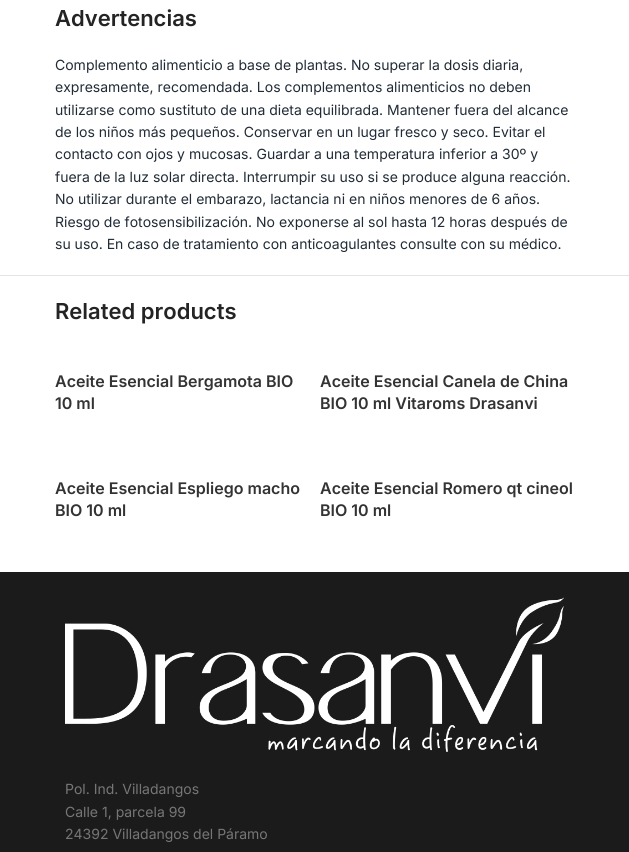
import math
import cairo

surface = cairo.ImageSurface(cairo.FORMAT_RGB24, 629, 852)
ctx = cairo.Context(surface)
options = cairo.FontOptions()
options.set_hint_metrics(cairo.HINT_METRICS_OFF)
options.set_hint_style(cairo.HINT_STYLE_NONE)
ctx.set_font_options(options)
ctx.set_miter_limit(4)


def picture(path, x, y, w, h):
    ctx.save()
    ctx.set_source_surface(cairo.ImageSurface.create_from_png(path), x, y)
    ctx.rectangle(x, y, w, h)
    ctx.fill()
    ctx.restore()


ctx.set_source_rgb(1, 1, 1)
ctx.paint()
ctx.set_source_rgb(0.894, 0.894, 0.894)
ctx.rectangle(0, 275, 629, 1)
ctx.fill()
ctx.select_font_face("Inter SemiBold")
ctx.set_font_size(22)
ctx.set_source_rgb(0.141, 0.141, 0.141)
ctx.move_to(55, 26)
ctx.show_text("Advertencias")
ctx.select_font_face("Inter")
ctx.set_font_size(14)
ctx.set_source_rgb(0.129, 0.169, 0.212)
ctx.move_to(55, 70)
ctx.show_text("Complemento alimenticio a base de plantas. No superar la dosis diaria,")
ctx.move_to(55, 92)
ctx.show_text("expresamente, recomendada. Los complementos alimenticios no deben")
ctx.move_to(55, 115)
ctx.show_text("utilizarse como sustituto de una dieta equilibrada. Mantener fuera del alcance")
ctx.move_to(55, 137)
ctx.show_text("de los niños más pequeños. Conservar en un lugar fresco y seco. Evitar el")
ctx.move_to(55, 159)
ctx.show_text("contacto con ojos y mucosas. Guardar a una temperatura inferior a 30º y")
ctx.move_to(55, 182)
ctx.show_text("fuera de la luz solar directa. Interrumpir su uso si se produce alguna reacción.")
ctx.move_to(55, 204)
ctx.show_text("No utilizar durante el embarazo, lactancia ni en niños menores de 6 años.")
ctx.move_to(55, 227)
ctx.show_text("Riesgo de fotosensibilización. No exponerse al sol hasta 12 horas después de")
ctx.move_to(55, 249)
ctx.show_text("su uso. En caso de tratamiento con anticoagulantes consulte con su médico.")
ctx.select_font_face("Inter SemiBold")
ctx.set_font_size(22)
ctx.set_source_rgb(0.141, 0.141, 0.141)
ctx.move_to(55, 319)
ctx.show_text("Related products")
ctx.set_font_size(16)
ctx.set_source_rgb(0.2, 0.2, 0.2)
ctx.move_to(55, 387)
ctx.show_text("Aceite Esencial Bergamota BIO")
ctx.move_to(55, 409)
ctx.show_text("10 ml")
ctx.move_to(320, 387)
ctx.show_text("Aceite Esencial Canela de China")
ctx.move_to(320, 409)
ctx.show_text("BIO 10 ml Vitaroms Drasanvi")
ctx.move_to(55, 494)
ctx.show_text("Aceite Esencial Espliego macho")
ctx.move_to(55, 516)
ctx.show_text("BIO 10 ml")
ctx.move_to(320, 494)
ctx.show_text("Aceite Esencial Romero qt cineol")
ctx.move_to(320, 516)
ctx.show_text("BIO 10 ml")
ctx.set_source_rgb(0.106, 0.106, 0.106)
ctx.rectangle(0, 572, 629, 280)
ctx.fill()
picture("img1.png", 65, 597, 499, 155)
ctx.select_font_face("Inter")
ctx.set_font_size(14)
ctx.set_source_rgb(0.463, 0.463, 0.463)
ctx.move_to(65, 794)
ctx.show_text("Pol. Ind. Villadangos")
ctx.move_to(65, 817)
ctx.show_text("Calle 1, parcela 99")
ctx.move_to(65, 839)
ctx.show_text("24392 Villadangos del Páramo")
surface.write_to_png("page.png")
